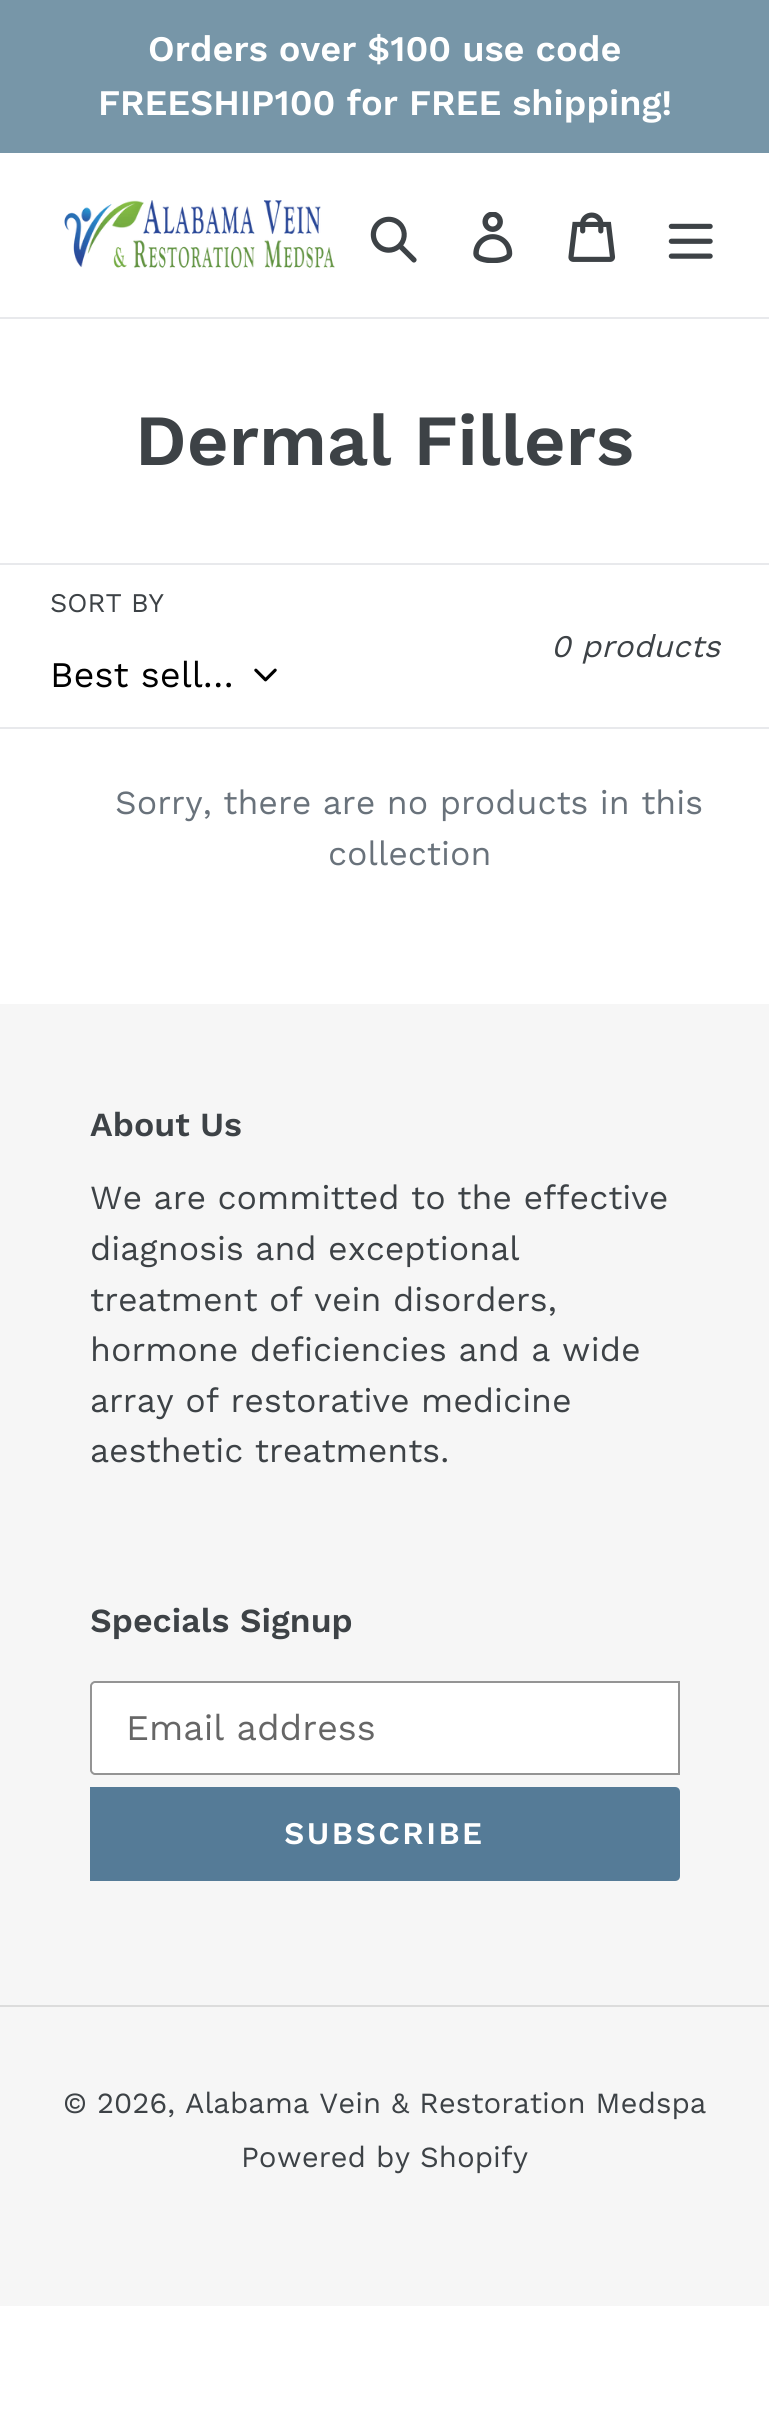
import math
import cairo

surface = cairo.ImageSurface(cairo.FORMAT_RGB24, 769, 2436)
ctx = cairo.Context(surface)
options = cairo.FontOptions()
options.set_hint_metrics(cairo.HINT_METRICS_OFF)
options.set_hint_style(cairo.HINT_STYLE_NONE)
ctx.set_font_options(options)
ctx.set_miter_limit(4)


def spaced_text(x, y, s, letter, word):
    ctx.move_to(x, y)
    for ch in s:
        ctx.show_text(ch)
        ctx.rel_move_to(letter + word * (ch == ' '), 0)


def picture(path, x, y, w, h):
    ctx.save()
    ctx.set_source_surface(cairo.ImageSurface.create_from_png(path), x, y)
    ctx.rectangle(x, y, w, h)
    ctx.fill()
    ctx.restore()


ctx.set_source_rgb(1, 1, 1)
ctx.paint()
ctx.set_source_rgb(0.467, 0.588, 0.659)
ctx.rectangle(0, 0, 769, 153)
ctx.fill()
ctx.select_font_face("Work Sans SemiBold")
ctx.set_font_size(36)
ctx.set_source_rgb(1, 1, 1)
ctx.move_to(148, 61)
ctx.show_text("Orders over $100 use code")
ctx.move_to(98, 115)
ctx.show_text("FREESHIP100 for FREE shipping!")
ctx.set_source_rgb(0.91, 0.914, 0.922)
ctx.rectangle(0, 317, 769, 2)
ctx.fill()
picture("img1.png", 64, 200, 271, 68)
picture("img2.png", 370, 216, 47, 47)
picture("img3.png", 473, 212, 40, 51)
picture("img4.png", 568, 212, 48, 50)
picture("img5.png", 668, 223, 45, 36)
ctx.set_font_size(72)
ctx.set_source_rgb(0.239, 0.259, 0.275)
ctx.move_to(135, 465)
ctx.show_text("Dermal Fillers")
ctx.set_source_rgb(0.91, 0.914, 0.922)
ctx.rectangle(0, 563, 769, 2)
ctx.fill()
ctx.rectangle(0, 727, 769, 2)
ctx.fill()
ctx.select_font_face("Work Sans")
ctx.set_font_size(27)
ctx.set_source_rgb(0.239, 0.259, 0.275)
ctx.move_to(50, 612)
ctx.show_text("SORT BY")
ctx.set_font_size(36)
ctx.set_source_rgb(0, 0, 0)
ctx.move_to(50, 687)
ctx.show_text("Best sell…")
picture("img6.png", 254, 668, 23, 14)
ctx.select_font_face("Work Sans", cairo.FONT_SLANT_ITALIC)
ctx.set_font_size(31.5)
ctx.set_source_rgb(0.239, 0.259, 0.275)
ctx.move_to(551, 657)
ctx.show_text("0 products")
ctx.select_font_face("Work Sans")
ctx.set_font_size(33.75)
ctx.set_source_rgb(0.412, 0.447, 0.482)
ctx.move_to(115, 814)
ctx.show_text("Sorry, there are no products in this")
ctx.move_to(328, 865)
ctx.show_text("collection")
ctx.set_source_rgb(0.961, 0.961, 0.961)
ctx.rectangle(0, 1004, 769, 1302)
ctx.fill()
ctx.select_font_face("Work Sans SemiBold")
ctx.set_source_rgb(0.239, 0.259, 0.275)
ctx.move_to(90, 1136)
ctx.show_text("About Us")
ctx.select_font_face("Work Sans")
ctx.move_to(90, 1209)
ctx.show_text("We are committed to the effective")
ctx.move_to(90, 1260)
ctx.show_text("diagnosis and exceptional")
ctx.move_to(90, 1311)
ctx.show_text("treatment of vein disorders,")
ctx.move_to(90, 1361)
ctx.show_text("hormone deficiencies and a wide")
ctx.move_to(90, 1412)
ctx.show_text("array of restorative medicine")
ctx.move_to(90, 1462)
ctx.show_text("aesthetic treatments.")
ctx.select_font_face("Work Sans SemiBold")
ctx.move_to(90, 1632)
ctx.show_text("Specials Signup")
ctx.set_source_rgb(1, 1, 1)
ctx.new_path()
ctx.move_to(95, 1682)
ctx.line_to(679, 1682)
ctx.line_to(679, 1774)
ctx.line_to(95, 1774)
ctx.curve_to(93, 1774, 91, 1772, 91, 1770)
ctx.line_to(91, 1686)
ctx.curve_to(91, 1684, 93, 1682, 95, 1682)
ctx.close_path()
ctx.fill_preserve()
ctx.set_source_rgb(0.58, 0.58, 0.58)
ctx.stroke()
ctx.select_font_face("Work Sans")
ctx.set_font_size(36)
ctx.set_source_rgb(0.4, 0.4, 0.4)
ctx.move_to(126, 1740)
ctx.show_text("Email address")
ctx.set_source_rgb(0.333, 0.482, 0.592)
ctx.new_path()
ctx.move_to(90, 1787)
ctx.line_to(675, 1787)
ctx.curve_to(678, 1787, 680, 1789, 680, 1792)
ctx.line_to(680, 1876)
ctx.curve_to(680, 1879, 678, 1881, 675, 1881)
ctx.line_to(90, 1881)
ctx.close_path()
ctx.fill()
ctx.select_font_face("Work Sans SemiBold")
ctx.set_font_size(31.5)
ctx.set_source_rgb(1, 1, 1)
spaced_text(284, 1844, "SUBSCRIBE", 2.5, 0)
ctx.set_source_rgb(0.863, 0.863, 0.863)
ctx.rectangle(0, 2005, 769, 2)
ctx.fill()
ctx.select_font_face("Work Sans")
ctx.set_font_size(29.25)
ctx.set_source_rgb(0.239, 0.259, 0.275)
ctx.move_to(63, 2113)
ctx.show_text("© 2026, Alabama Vein & Restoration Medspa")
ctx.move_to(241, 2167)
ctx.show_text("Powered by Shopify")
surface.write_to_png("page.png")
